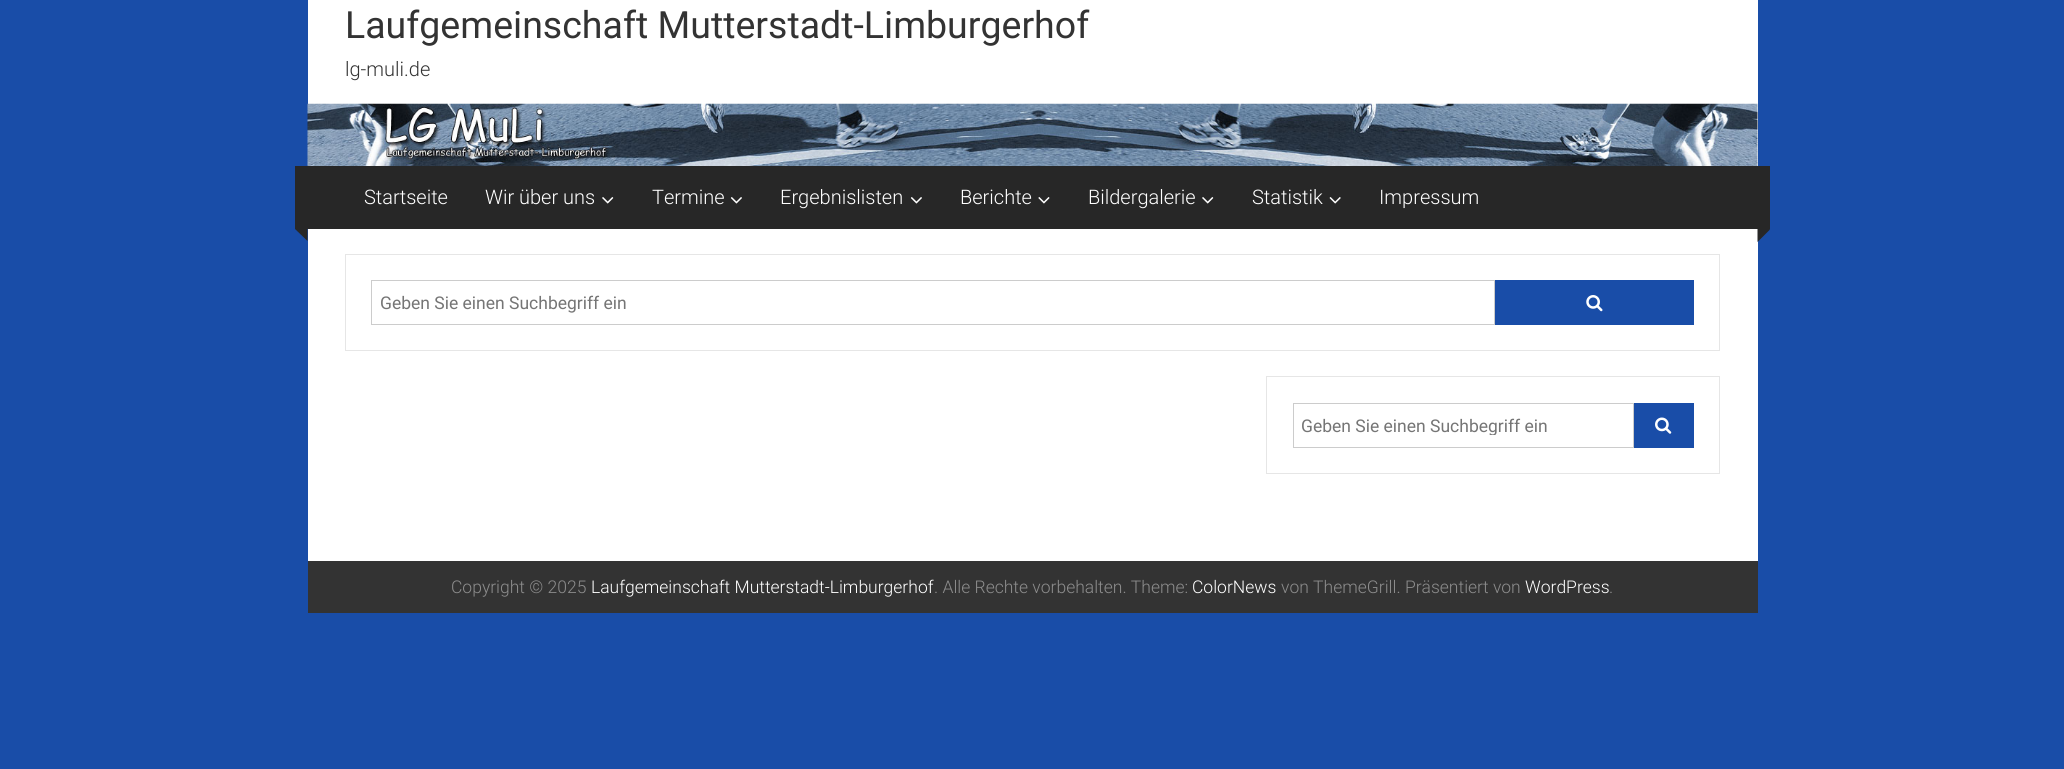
import math
import cairo

surface = cairo.ImageSurface(cairo.FORMAT_RGB24, 2064, 769)
ctx = cairo.Context(surface)
options = cairo.FontOptions()
options.set_hint_metrics(cairo.HINT_METRICS_OFF)
options.set_hint_style(cairo.HINT_STYLE_NONE)
ctx.set_font_options(options)
ctx.set_miter_limit(4)


def picture(path, x, y, w, h):
    ctx.save()
    ctx.set_source_surface(cairo.ImageSurface.create_from_png(path), x, y)
    ctx.rectangle(x, y, w, h)
    ctx.fill()
    ctx.restore()


ctx.set_source_rgb(0.098, 0.302, 0.659)
ctx.paint()
ctx.set_source_rgb(1, 1, 1)
ctx.rectangle(308, 0, 1450, 561)
ctx.fill()
ctx.select_font_face("Roboto")
ctx.set_font_size(37.5)
ctx.set_source_rgb(0.2, 0.2, 0.2)
ctx.move_to(345, 38)
ctx.show_text("Laufgemeinschaft Mutterstadt-Limburgerhof")
ctx.select_font_face("Roboto Light")
ctx.set_font_size(20)
ctx.move_to(345, 76)
ctx.show_text("lg-muli.de")
picture("img1.png", 307, 103, 1451, 63)
ctx.set_source_rgb(0.153, 0.153, 0.153)
ctx.rectangle(295, 166, 1463, 63)
ctx.fill()
ctx.set_source_rgb(1, 1, 1)
ctx.move_to(364, 204)
ctx.show_text("Startseite")
ctx.move_to(485, 204)
ctx.show_text("Wir über uns")
picture("img2.png", 602, 197, 12, 7)
ctx.move_to(652, 204)
ctx.show_text("Termine")
picture("img3.png", 730, 197, 12, 7)
ctx.move_to(780, 204)
ctx.show_text("Ergebnislisten")
picture("img3.png", 910, 197, 12, 7)
ctx.move_to(960, 204)
ctx.show_text("Berichte")
picture("img4.png", 1038, 197, 12, 7)
ctx.move_to(1088, 204)
ctx.show_text("Bildergalerie")
picture("img2.png", 1202, 197, 12, 7)
ctx.move_to(1252, 204)
ctx.show_text("Statistik")
picture("img5.png", 1329, 197, 12, 7)
ctx.move_to(1379, 204)
ctx.show_text("Impressum")
ctx.set_source_rgb(0.153, 0.153, 0.153)
ctx.new_path()
ctx.move_to(307.5, 216)
ctx.line_to(307.5, 241)
ctx.line_to(295, 229)
ctx.close_path()
ctx.fill()
ctx.new_path()
ctx.move_to(1757.5, 242)
ctx.line_to(1757.5, 217)
ctx.line_to(1770, 229.5)
ctx.close_path()
ctx.fill()
ctx.rectangle(1758, 166, 12, 63)
ctx.fill()
ctx.rectangle(345.5, 254.5, 1374, 96)
ctx.set_source_rgb(0.902, 0.902, 0.902)
ctx.set_line_width(1)
ctx.stroke()
ctx.rectangle(371.5, 280.5, 1123, 44)
ctx.set_source_rgb(0.8, 0.8, 0.8)
ctx.stroke()
ctx.select_font_face("Roboto")
ctx.set_font_size(17.5)
ctx.set_source_rgb(0.459, 0.459, 0.459)
ctx.move_to(380, 309)
ctx.show_text("Geben Sie einen Suchbegriff ein")
ctx.set_source_rgb(0.098, 0.302, 0.659)
ctx.rectangle(1495, 280, 199, 45)
ctx.fill()
picture("img6.png", 1586, 295, 17, 17)
ctx.rectangle(1266.5, 376.5, 453, 97)
ctx.set_source_rgb(0.902, 0.902, 0.902)
ctx.stroke()
ctx.rectangle(1293.5, 403.5, 340, 44)
ctx.set_source_rgb(0.8, 0.8, 0.8)
ctx.stroke()
ctx.save()
ctx.rectangle(1301, 415, 324, 20)
ctx.clip()
ctx.set_source_rgb(0.459, 0.459, 0.459)
ctx.move_to(1301, 432)
ctx.show_text("Geben Sie einen Suchbegriff ein")
ctx.restore()
ctx.set_source_rgb(0.098, 0.302, 0.659)
ctx.rectangle(1634, 403, 60, 45)
ctx.fill()
picture("img7.png", 1655, 417, 17, 17)
ctx.set_source_rgb(0.2, 0.2, 0.2)
ctx.rectangle(308, 561, 1450, 52)
ctx.fill()
ctx.select_font_face("Roboto Light")
ctx.set_source_rgb(0.549, 0.549, 0.549)
ctx.move_to(451, 593)
ctx.show_text("Copyright © 2025")
ctx.set_source_rgb(1, 1, 1)
ctx.move_to(591, 593)
ctx.show_text("Laufgemeinschaft Mutterstadt-Limburgerhof")
ctx.set_source_rgb(0.549, 0.549, 0.549)
ctx.move_to(934, 593)
ctx.show_text(". Alle Rechte vorbehalten. Theme:")
ctx.set_source_rgb(1, 1, 1)
ctx.move_to(1192, 593)
ctx.show_text("ColorNews")
ctx.set_source_rgb(0.549, 0.549, 0.549)
ctx.move_to(1281, 593)
ctx.show_text("von ThemeGrill. Präsentiert von")
ctx.set_source_rgb(1, 1, 1)
ctx.move_to(1525, 593)
ctx.show_text("WordPress")
ctx.set_source_rgb(0.549, 0.549, 0.549)
ctx.move_to(1609, 593)
ctx.show_text(".")
surface.write_to_png("page.png")
